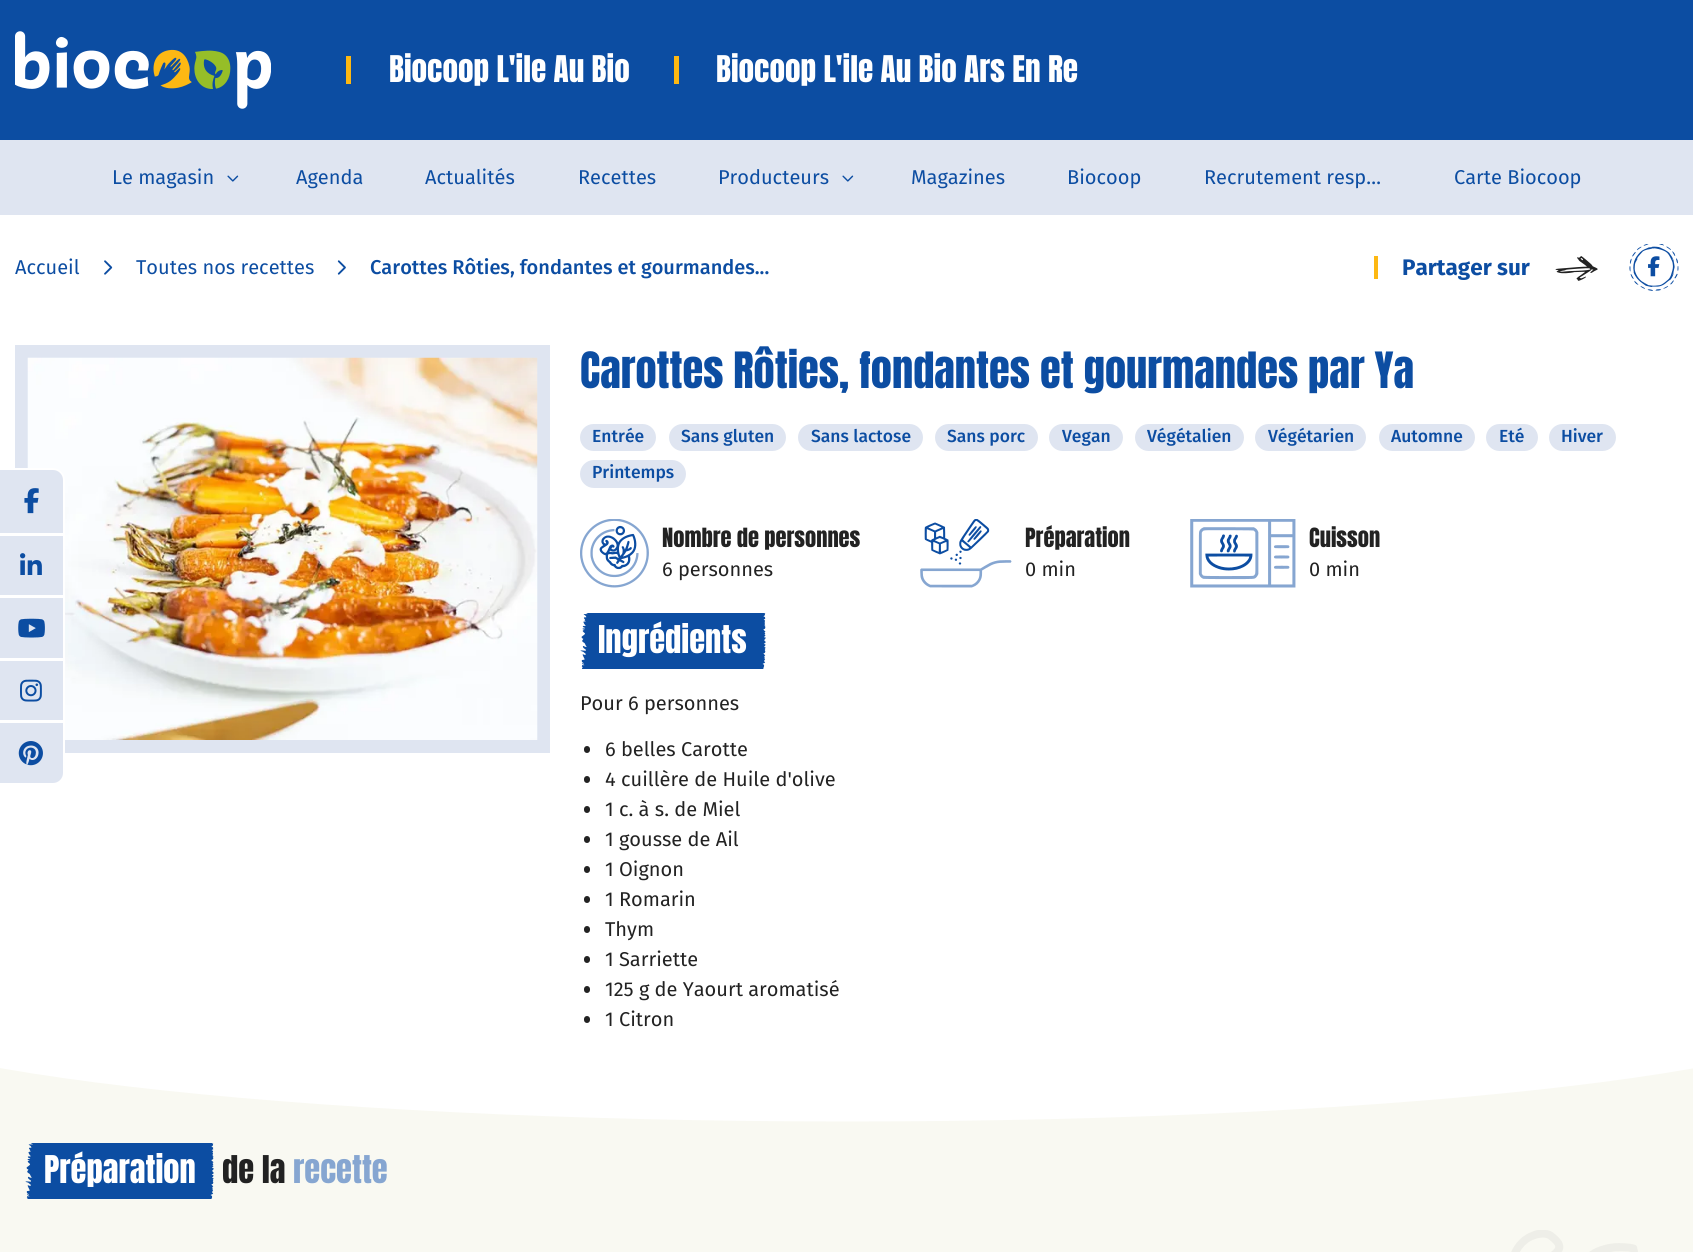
import math
import cairo

surface = cairo.ImageSurface(cairo.FORMAT_RGB24, 1693, 1252)
ctx = cairo.Context(surface)
options = cairo.FontOptions()
options.set_hint_metrics(cairo.HINT_METRICS_OFF)
options.set_hint_style(cairo.HINT_STYLE_NONE)
ctx.set_font_options(options)
ctx.set_miter_limit(4)


def round_rect(x, y, w, h, r):
    ctx.new_sub_path()
    for i, (u, v) in enumerate([(x + w - r, y + h - r), (x + r, y + h - r), (x + r, y + r), (x + w - r, y + r)]):
        ctx.arc(u, v, r, i * math.pi / 2, (i + 1) * math.pi / 2)
    ctx.close_path()


def picture(path, x, y, w, h):
    ctx.save()
    ctx.set_source_surface(cairo.ImageSurface.create_from_png(path), x, y)
    ctx.rectangle(x, y, w, h)
    ctx.fill()
    ctx.restore()


ctx.set_source_rgb(1, 1, 1)
ctx.paint()
ctx.set_source_rgb(0.047, 0.302, 0.635)
ctx.rectangle(0, 0, 1693, 140)
ctx.fill()
picture("img1.png", 15, 31, 256, 78)
ctx.set_source_rgb(0.992, 0.722, 0.075)
ctx.rectangle(346, 56, 5, 28)
ctx.fill()
ctx.select_font_face("Anton")
ctx.set_font_size(31.25)
ctx.set_source_rgb(1, 1, 1)
ctx.move_to(389, 82)
ctx.show_text("Biocoop L'ile Au Bio")
ctx.set_source_rgb(0.992, 0.722, 0.075)
ctx.rectangle(674, 56, 5, 28)
ctx.fill()
ctx.set_source_rgb(1, 1, 1)
ctx.move_to(716, 82)
ctx.show_text("Biocoop L'ile Au Bio Ars En Re")
ctx.set_source_rgb(0.875, 0.898, 0.945)
ctx.rectangle(0, 140, 1693, 75)
ctx.fill()
ctx.select_font_face("Fira Sans")
ctx.set_font_size(20)
ctx.set_source_rgb(0.047, 0.302, 0.635)
ctx.move_to(112, 184)
ctx.show_text("Le magasin")
picture("img2.png", 227, 175, 12, 7)
ctx.move_to(296, 184)
ctx.show_text("Agenda")
ctx.move_to(425, 184)
ctx.show_text("Actualités")
ctx.move_to(578, 184)
ctx.show_text("Recettes")
ctx.move_to(718, 184)
ctx.show_text("Producteurs")
picture("img2.png", 842, 175, 12, 7)
ctx.move_to(911, 184)
ctx.show_text("Magazines")
ctx.move_to(1067, 184)
ctx.show_text("Biocoop")
ctx.move_to(1204, 184)
ctx.show_text("Recrutement resp…")
ctx.move_to(1454, 184)
ctx.show_text("Carte Biocoop")
ctx.move_to(15, 274)
ctx.show_text("Accueil")
picture("img3.png", 104, 260, 9, 15)
ctx.move_to(136, 274)
ctx.show_text("Toutes nos recettes")
picture("img4.png", 337, 260, 9, 15)
ctx.select_font_face("Fira Sans Medium")
ctx.move_to(370, 274)
ctx.show_text("Carottes Rôties, fondantes et gourmandes...")
ctx.set_source_rgb(0.992, 0.722, 0.075)
ctx.rectangle(1374, 256, 4, 23)
ctx.fill()
ctx.select_font_face("Fira Sans", cairo.FONT_SLANT_NORMAL, cairo.FONT_WEIGHT_BOLD)
ctx.set_font_size(22.5)
ctx.set_source_rgb(0.047, 0.302, 0.635)
ctx.move_to(1402, 275)
ctx.show_text("Partager sur")
picture("img5.png", 1555, 256, 43, 25)
picture("img6.png", 1629, 244, 50, 47)
picture("img7.png", 1648, 256, 12, 21)
ctx.rectangle(21.5, 351.5, 522, 395)
ctx.set_source_rgb(0.875, 0.898, 0.945)
ctx.set_line_width(13)
ctx.stroke()
picture("img8.png", 27, 357, 511, 383)
ctx.select_font_face("Anton")
ctx.set_font_size(42.5)
ctx.set_source_rgb(0.047, 0.302, 0.635)
ctx.move_to(580, 388)
ctx.show_text("Carottes Rôties, fondantes et gourmandes par Ya")
ctx.set_source_rgb(0.875, 0.898, 0.945)
round_rect(580, 424, 76, 27, 13.5)
ctx.fill()
ctx.select_font_face("Fira Sans Medium")
ctx.set_font_size(17.5)
ctx.set_source_rgb(0.047, 0.302, 0.635)
ctx.move_to(592, 442)
ctx.show_text("Entrée")
ctx.set_source_rgb(0.875, 0.898, 0.945)
round_rect(669, 424, 117, 27, 13.5)
ctx.fill()
ctx.set_source_rgb(0.047, 0.302, 0.635)
ctx.move_to(681, 442)
ctx.show_text("Sans gluten")
ctx.set_source_rgb(0.875, 0.898, 0.945)
round_rect(798, 424, 125, 27, 13.5)
ctx.fill()
ctx.set_source_rgb(0.047, 0.302, 0.635)
ctx.move_to(811, 442)
ctx.show_text("Sans lactose")
ctx.set_source_rgb(0.875, 0.898, 0.945)
round_rect(935, 424, 103, 27, 13.5)
ctx.fill()
ctx.set_source_rgb(0.047, 0.302, 0.635)
ctx.move_to(947, 442)
ctx.show_text("Sans porc")
ctx.set_source_rgb(0.875, 0.898, 0.945)
round_rect(1049, 424, 74, 27, 13.5)
ctx.fill()
ctx.set_source_rgb(0.047, 0.302, 0.635)
ctx.move_to(1062, 442)
ctx.show_text("Vegan")
ctx.set_source_rgb(0.875, 0.898, 0.945)
round_rect(1135, 424, 109, 27, 13.5)
ctx.fill()
ctx.set_source_rgb(0.047, 0.302, 0.635)
ctx.move_to(1147, 442)
ctx.show_text("Végétalien")
ctx.set_source_rgb(0.875, 0.898, 0.945)
round_rect(1255, 424, 111, 27, 13.5)
ctx.fill()
ctx.set_source_rgb(0.047, 0.302, 0.635)
ctx.move_to(1268, 442)
ctx.show_text("Végétarien")
ctx.set_source_rgb(0.875, 0.898, 0.945)
round_rect(1379, 424, 96, 27, 13.5)
ctx.fill()
ctx.set_source_rgb(0.047, 0.302, 0.635)
ctx.move_to(1391, 442)
ctx.show_text("Automne")
ctx.set_source_rgb(0.875, 0.898, 0.945)
round_rect(1486, 424, 52, 27, 13.5)
ctx.fill()
ctx.set_source_rgb(0.047, 0.302, 0.635)
ctx.move_to(1499, 442)
ctx.show_text("Eté")
ctx.set_source_rgb(0.875, 0.898, 0.945)
round_rect(1549, 424, 67, 27, 13.5)
ctx.fill()
ctx.set_source_rgb(0.047, 0.302, 0.635)
ctx.move_to(1561, 442)
ctx.show_text("Hiver")
ctx.set_source_rgb(0.875, 0.898, 0.945)
round_rect(580, 460, 106, 28, 14)
ctx.fill()
ctx.set_source_rgb(0.047, 0.302, 0.635)
ctx.move_to(592, 478)
ctx.show_text("Printemps")
picture("img9.png", 580, 519, 69, 69)
ctx.select_font_face("Anton")
ctx.set_font_size(22.5)
ctx.set_source_rgb(0.133, 0.133, 0.133)
ctx.move_to(662, 547)
ctx.show_text("Nombre de personnes")
ctx.select_font_face("Fira Sans")
ctx.set_font_size(20)
ctx.move_to(662, 576)
ctx.show_text("6 personnes")
picture("img10.png", 920, 519, 92, 69)
ctx.select_font_face("Anton")
ctx.set_font_size(22.5)
ctx.move_to(1025, 547)
ctx.show_text("Préparation")
ctx.select_font_face("Fira Sans")
ctx.set_font_size(20)
ctx.move_to(1025, 576)
ctx.show_text("0 min")
picture("img11.png", 1190, 519, 106, 69)
ctx.select_font_face("Anton")
ctx.set_font_size(22.5)
ctx.move_to(1309, 547)
ctx.show_text("Cuisson")
ctx.select_font_face("Fira Sans")
ctx.set_font_size(20)
ctx.move_to(1309, 576)
ctx.show_text("0 min")
picture("img12.png", 580, 613, 186, 56)
ctx.select_font_face("Anton")
ctx.set_font_size(32.5)
ctx.set_source_rgb(1, 1, 1)
ctx.move_to(598, 653)
ctx.show_text("Ingrédients")
ctx.select_font_face("Fira Sans")
ctx.set_font_size(20)
ctx.set_source_rgb(0.133, 0.133, 0.133)
ctx.move_to(580, 710)
ctx.show_text("Pour 6 personnes")
round_rect(584, 746, 6, 7, 3)
ctx.fill()
ctx.move_to(605, 756)
ctx.show_text("6 belles Carotte")
round_rect(584, 776, 6, 7, 3)
ctx.fill()
ctx.move_to(605, 786)
ctx.show_text("4 cuillère de Huile d'olive")
round_rect(584, 806, 6, 7, 3)
ctx.fill()
ctx.move_to(605, 816)
ctx.show_text("1 c. à s. de Miel")
round_rect(584, 836, 6, 7, 3)
ctx.fill()
ctx.move_to(605, 846)
ctx.show_text("1 gousse de Ail")
round_rect(584, 866, 6, 7, 3)
ctx.fill()
ctx.move_to(605, 876)
ctx.show_text("1 Oignon")
round_rect(584, 896, 6, 7, 3)
ctx.fill()
ctx.move_to(605, 906)
ctx.show_text("1 Romarin")
round_rect(584, 926, 6, 7, 3)
ctx.fill()
ctx.move_to(605, 936)
ctx.show_text("Thym")
round_rect(584, 956, 6, 7, 3)
ctx.fill()
ctx.move_to(605, 966)
ctx.show_text("1 Sarriette")
round_rect(584, 986, 6, 7, 3)
ctx.fill()
ctx.move_to(605, 996)
ctx.show_text("125 g de Yaourt aromatisé")
round_rect(584, 1016, 6, 7, 3)
ctx.fill()
ctx.move_to(605, 1026)
ctx.show_text("1 Citron")
ctx.set_source_rgb(0.973, 0.973, 0.949)
ctx.rectangle(0, 1068, 1693, 184)
ctx.fill()
ctx.save()
ctx.rectangle(0, 1055, 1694, 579)
ctx.clip()
ctx.set_source_rgb(1, 1, 1)
ctx.new_path()
ctx.move_to(847.5, 883.5)
ctx.curve_to(1408.5, 883.5, 1863.5, 937, 1863.5, 1002.5)
ctx.curve_to(1863.5, 1068, 1408.5, 1121.5, 847.5, 1121.5)
ctx.curve_to(286.5, 1121.5, -168.5, 1068, -168.5, 1002.5)
ctx.curve_to(-168.5, 937, 286.5, 883.5, 847.5, 883.5)
ctx.close_path()
ctx.fill()
ctx.restore()
picture("img13.png", 25, 1143, 189, 56)
ctx.select_font_face("Anton")
ctx.set_font_size(32.5)
ctx.set_source_rgb(1, 1, 1)
ctx.move_to(44, 1183)
ctx.show_text("Préparation")
ctx.set_source_rgb(0.133, 0.133, 0.133)
ctx.move_to(222, 1183)
ctx.show_text("de la")
ctx.set_source_rgb(0.525, 0.651, 0.82)
ctx.move_to(293, 1183)
ctx.show_text("recette")
picture("img14.png", 1511, 1230, 127, 22)
ctx.new_path()
ctx.move_to(-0.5, 469.5)
ctx.line_to(52, 469.5)
ctx.curve_to(58.5, 469.5, 63.5, 474.5, 63.5, 481)
ctx.line_to(63.5, 772)
ctx.curve_to(63.5, 778.5, 58.5, 783.5, 52, 783.5)
ctx.line_to(-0.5, 783.5)
ctx.close_path()
ctx.set_source_rgb(1, 1, 1)
ctx.set_line_width(3)
ctx.stroke()
ctx.set_source_rgb(0.875, 0.898, 0.945)
ctx.new_path()
ctx.move_to(0, 470)
ctx.line_to(53, 470)
ctx.curve_to(58.5, 470, 63, 474.5, 63, 480)
ctx.line_to(63, 533)
ctx.line_to(0, 533)
ctx.close_path()
ctx.fill()
picture("img15.png", 24, 488, 15, 26)
ctx.rectangle(0, 536, 63, 59)
ctx.fill()
ctx.set_source_rgb(1, 1, 1)
ctx.rectangle(15, 533, 48, 3)
ctx.fill()
picture("img16.png", 20, 553, 22, 22)
ctx.set_source_rgb(0.875, 0.898, 0.945)
ctx.rectangle(0, 598, 63, 60)
ctx.fill()
ctx.set_source_rgb(1, 1, 1)
ctx.rectangle(15, 595, 48, 3)
ctx.fill()
picture("img17.png", 18, 618, 27, 20)
ctx.set_source_rgb(0.875, 0.898, 0.945)
ctx.rectangle(0, 661, 63, 59)
ctx.fill()
ctx.set_source_rgb(1, 1, 1)
ctx.rectangle(15, 658, 48, 3)
ctx.fill()
picture("img18.png", 20, 679, 22, 23)
ctx.set_source_rgb(0.875, 0.898, 0.945)
ctx.new_path()
ctx.move_to(0, 723)
ctx.line_to(63, 723)
ctx.line_to(63, 773)
ctx.curve_to(63, 778.5, 58.5, 783, 53, 783)
ctx.line_to(0, 783)
ctx.close_path()
ctx.fill()
ctx.set_source_rgb(1, 1, 1)
ctx.rectangle(15, 720, 48, 3)
ctx.fill()
picture("img19.png", 18, 741, 25, 25)
surface.write_to_png("page.png")
